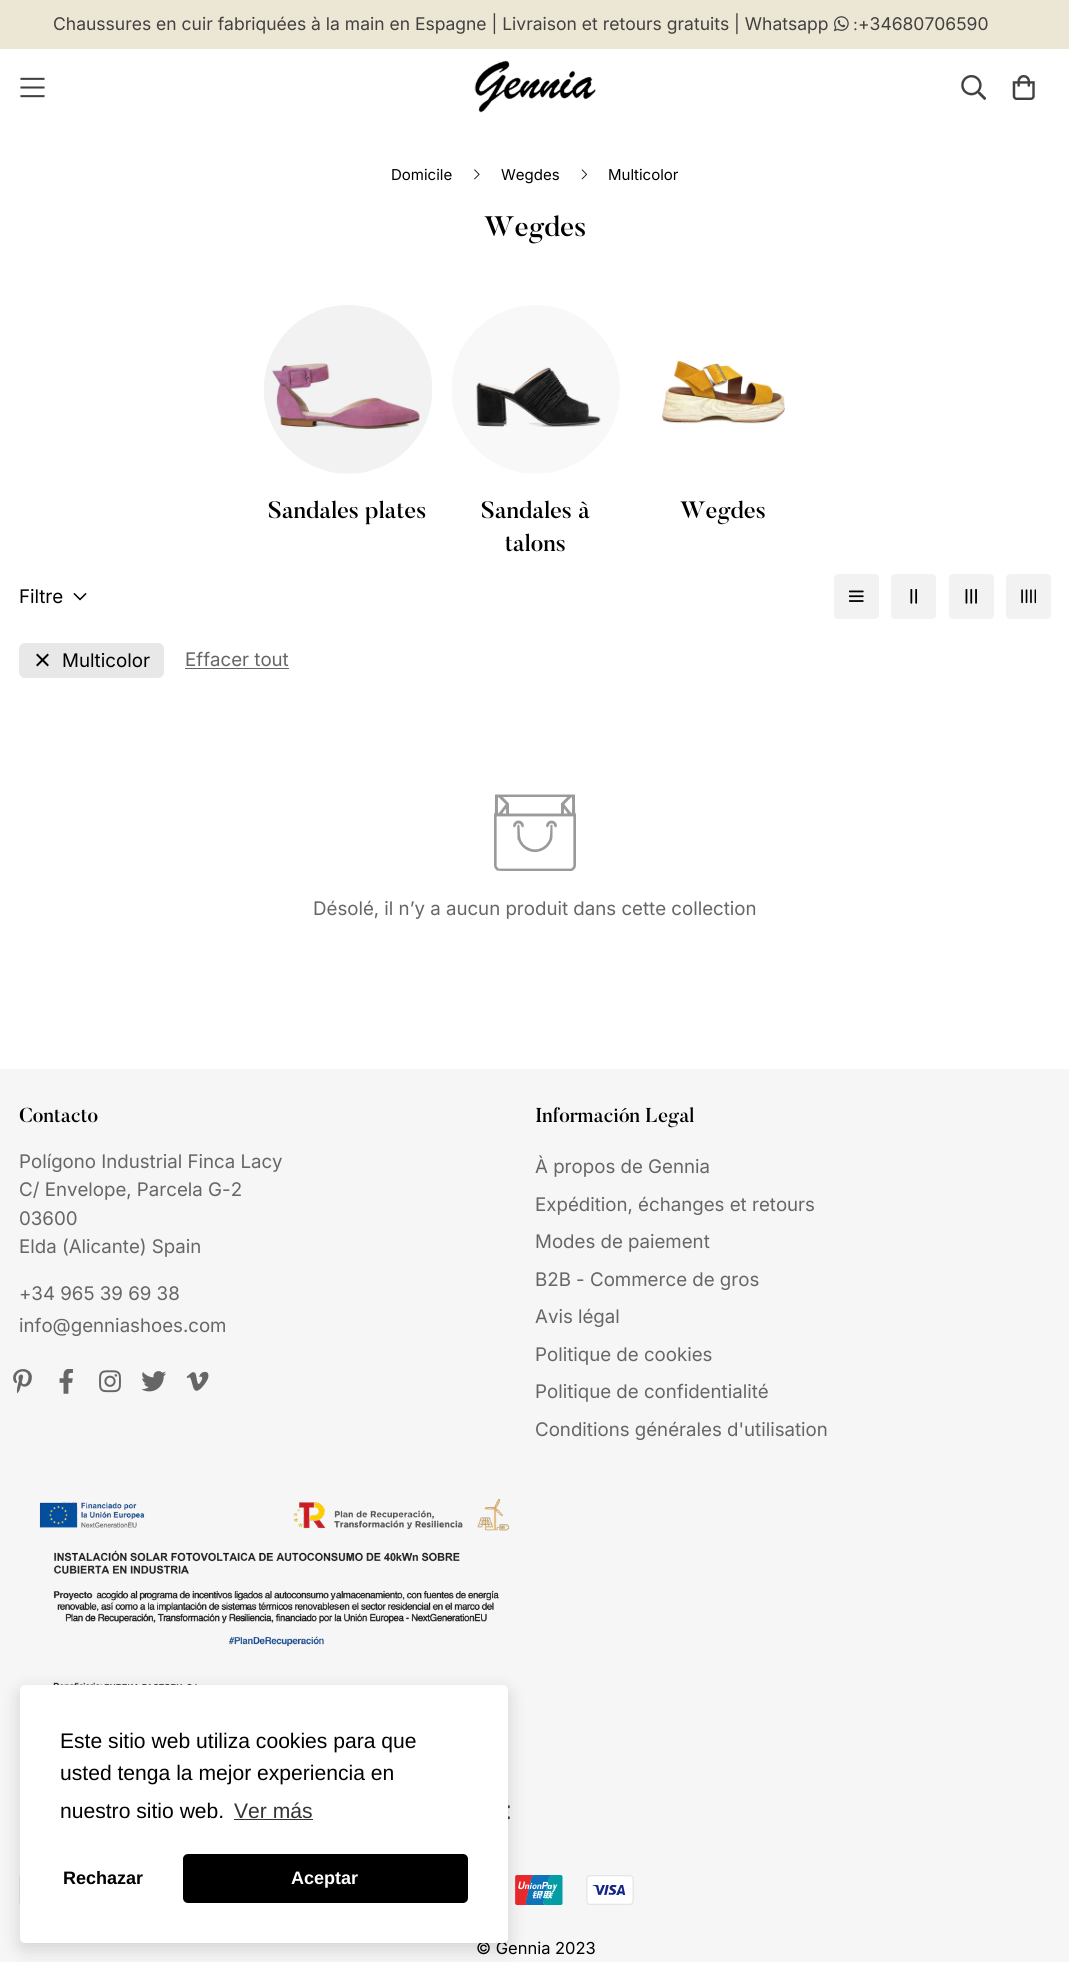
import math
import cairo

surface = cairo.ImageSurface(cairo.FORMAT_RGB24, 1069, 1962)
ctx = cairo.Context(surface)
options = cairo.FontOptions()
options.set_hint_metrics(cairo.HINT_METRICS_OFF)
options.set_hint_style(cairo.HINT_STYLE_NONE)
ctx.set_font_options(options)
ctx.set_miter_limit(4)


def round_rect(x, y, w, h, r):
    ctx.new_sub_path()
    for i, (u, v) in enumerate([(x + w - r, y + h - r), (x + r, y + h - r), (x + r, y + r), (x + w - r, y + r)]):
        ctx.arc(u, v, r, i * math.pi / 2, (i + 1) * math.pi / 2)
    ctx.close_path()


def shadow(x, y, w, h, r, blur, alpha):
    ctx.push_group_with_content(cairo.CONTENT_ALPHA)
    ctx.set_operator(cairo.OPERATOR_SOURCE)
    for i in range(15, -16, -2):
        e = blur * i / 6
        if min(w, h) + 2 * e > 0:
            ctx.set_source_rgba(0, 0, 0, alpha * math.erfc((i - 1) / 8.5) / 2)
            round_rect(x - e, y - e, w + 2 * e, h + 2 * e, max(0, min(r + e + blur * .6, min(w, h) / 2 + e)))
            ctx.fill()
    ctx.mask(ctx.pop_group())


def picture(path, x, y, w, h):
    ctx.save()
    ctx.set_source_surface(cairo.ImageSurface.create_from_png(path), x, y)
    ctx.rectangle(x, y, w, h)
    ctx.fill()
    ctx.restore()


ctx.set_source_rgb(1, 1, 1)
ctx.paint()
ctx.set_source_rgb(0.922, 0.902, 0.831)
ctx.rectangle(0, 0, 1069, 49)
ctx.fill()
ctx.select_font_face("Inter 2")
ctx.set_font_size(17.5)
ctx.set_source_rgb(0.263, 0.251, 0.251)
ctx.move_to(53, 30)
ctx.show_text("Chaussures en cuir fabriquées à la main en Espagne | Livraison et retours gratuits | Whatsapp")
picture("img1.png", 833, 16, 16, 16)
ctx.select_font_face("Liberation Serif")
ctx.move_to(853, 30)
ctx.show_text(":")
ctx.select_font_face("Inter 2")
ctx.move_to(858, 30)
ctx.show_text("+34680706590")
picture("img2.png", 20, 77, 25, 21)
picture("img3.png", 474, 60, 122, 53)
picture("img4.png", 961, 75, 25, 25)
picture("img5.png", 1012, 75, 23, 25)
ctx.set_font_size(15)
ctx.set_source_rgb(0, 0, 0)
ctx.move_to(391, 180)
ctx.show_text("Domicile")
picture("img6.png", 474, 169, 6, 11)
ctx.move_to(501, 180)
ctx.show_text("Wegdes")
picture("img7.png", 581, 169, 6, 11)
ctx.move_to(608, 180)
ctx.show_text("Multicolor")
ctx.select_font_face("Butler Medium")
ctx.set_font_size(28)
ctx.move_to(484, 236)
ctx.show_text("Wegdes")
picture("img8.png", 264, 305, 168, 169)
ctx.set_font_size(23.5)
ctx.move_to(268, 518)
ctx.show_text("Sandales plates")
picture("img9.png", 452, 305, 168, 169)
ctx.move_to(481, 518)
ctx.show_text("Sandales à")
ctx.move_to(505, 551)
ctx.show_text("talons")
picture("img10.png", 662, 360, 123, 64)
ctx.move_to(680, 518)
ctx.show_text("Wegdes")
ctx.select_font_face("Inter 2")
ctx.set_font_size(18.75)
ctx.move_to(19, 603)
ctx.show_text("Filtre")
picture("img11.png", 73, 593, 14, 8)
ctx.set_source_rgb(0.949, 0.949, 0.949)
round_rect(834, 574, 45, 45, 4)
ctx.fill()
picture("img12.png", 849, 590, 15, 12)
round_rect(891, 574, 45, 45, 4)
ctx.fill()
picture("img13.png", 910, 589, 8, 15)
round_rect(949, 574, 45, 45, 4)
ctx.fill()
picture("img14.png", 965, 589, 12, 15)
round_rect(1006, 574, 45, 45, 4)
ctx.fill()
picture("img15.png", 1021, 589, 15, 15)
ctx.set_source_rgb(0.91, 0.91, 0.91)
round_rect(19, 643, 145, 35, 6)
ctx.fill()
picture("img16.png", 36, 653, 13, 14)
ctx.set_source_rgb(0, 0, 0)
ctx.move_to(62, 667)
ctx.show_text("Multicolor")
ctx.select_font_face("Inter")
ctx.set_source_rgb(0.4, 0.4, 0.4)
ctx.move_to(185, 666)
ctx.show_text("Effacer tout")
ctx.rectangle(185, 668, 104, 1)
ctx.fill()
picture("img17.png", 494, 794, 82, 77)
ctx.move_to(313, 915)
ctx.show_text("Désolé, il n’y a aucun produit dans cette collection")
ctx.set_source_rgb(0.961, 0.961, 0.961)
ctx.rectangle(0, 1069, 1069, 893)
ctx.fill()
ctx.select_font_face("Butler Medium")
ctx.set_font_size(20)
ctx.set_source_rgb(0, 0, 0)
ctx.move_to(19, 1122)
ctx.show_text("Contacto")
ctx.select_font_face("Inter")
ctx.set_font_size(18.75)
ctx.set_source_rgb(0.4, 0.4, 0.4)
ctx.move_to(19, 1168)
ctx.show_text("Polígono Industrial Finca Lacy")
ctx.move_to(19, 1196)
ctx.show_text("C/ Envelope, Parcela G-2")
ctx.move_to(19, 1225)
ctx.show_text("03600")
ctx.move_to(19, 1253)
ctx.show_text("Elda (Alicante) Spain")
ctx.move_to(19, 1300)
ctx.show_text("+34 965 39 69 38")
ctx.move_to(19, 1332)
ctx.show_text("info@genniashoes.com")
picture("img18.png", 13, 1369, 19, 25)
picture("img19.png", 59, 1369, 14, 25)
picture("img20.png", 99, 1370, 22, 23)
picture("img21.png", 141, 1371, 25, 21)
picture("img22.png", 186, 1371, 23, 20)
ctx.select_font_face("Butler Medium")
ctx.set_font_size(20)
ctx.set_source_rgb(0, 0, 0)
ctx.move_to(535, 1122)
ctx.show_text("Información Legal")
ctx.select_font_face("Inter")
ctx.set_font_size(18.75)
ctx.set_source_rgb(0.4, 0.4, 0.4)
ctx.move_to(535, 1173)
ctx.show_text("À propos de Gennia")
ctx.move_to(535, 1211)
ctx.show_text("Expédition, échanges et retours")
ctx.move_to(535, 1248)
ctx.show_text("Modes de paiement")
ctx.move_to(535, 1286)
ctx.show_text("B2B - Commerce de gros")
ctx.move_to(535, 1323)
ctx.show_text("Avis légal")
ctx.move_to(535, 1361)
ctx.show_text("Politique de cookies")
ctx.move_to(535, 1398)
ctx.show_text("Politique de confidentialité")
ctx.move_to(535, 1436)
ctx.show_text("Conditions générales d'utilisation")
picture("img23.png", 39, 1498, 471, 322)
picture("img24.png", 19, 1876, 1, 28)
picture("img25.png", 515, 1875, 48, 30)
picture("img26.png", 586, 1875, 48, 30)
ctx.select_font_face("Inter 2")
ctx.set_font_size(16.5)
ctx.set_source_rgb(0, 0, 0)
ctx.move_to(476, 1954)
ctx.show_text("© Gennia 2023")
ctx.set_source_rgb(0, 0, 0)
shadow(20, 1691, 488, 258, 5, 9.5, 0.15)
ctx.set_source_rgb(1, 1, 1)
round_rect(20, 1685, 488, 258, 5)
ctx.fill()
ctx.select_font_face("Liberation Sans")
ctx.set_font_size(21.1)
ctx.set_source_rgb(0, 0, 0)
ctx.move_to(60, 1748)
ctx.show_text("Este sitio web utiliza cookies para que")
ctx.move_to(60, 1780)
ctx.show_text("usted tenga la mejor experiencia en")
ctx.move_to(60, 1818)
ctx.show_text("nuestro sitio web.")
ctx.set_source_rgb(0.2, 0.2, 0.2)
ctx.move_to(234, 1818)
ctx.show_text("Ver más")
ctx.rectangle(234, 1819, 79, 1)
ctx.fill()
ctx.select_font_face("Liberation Sans", cairo.FONT_SLANT_NORMAL, cairo.FONT_WEIGHT_BOLD)
ctx.set_font_size(18)
ctx.set_source_rgb(0, 0, 0)
ctx.move_to(63, 1884)
ctx.show_text("Rechazar")
round_rect(183, 1854, 285, 49, 5)
ctx.fill()
ctx.set_source_rgb(1, 1, 1)
ctx.move_to(291, 1884)
ctx.show_text("Aceptar")
surface.write_to_png("page.png")
